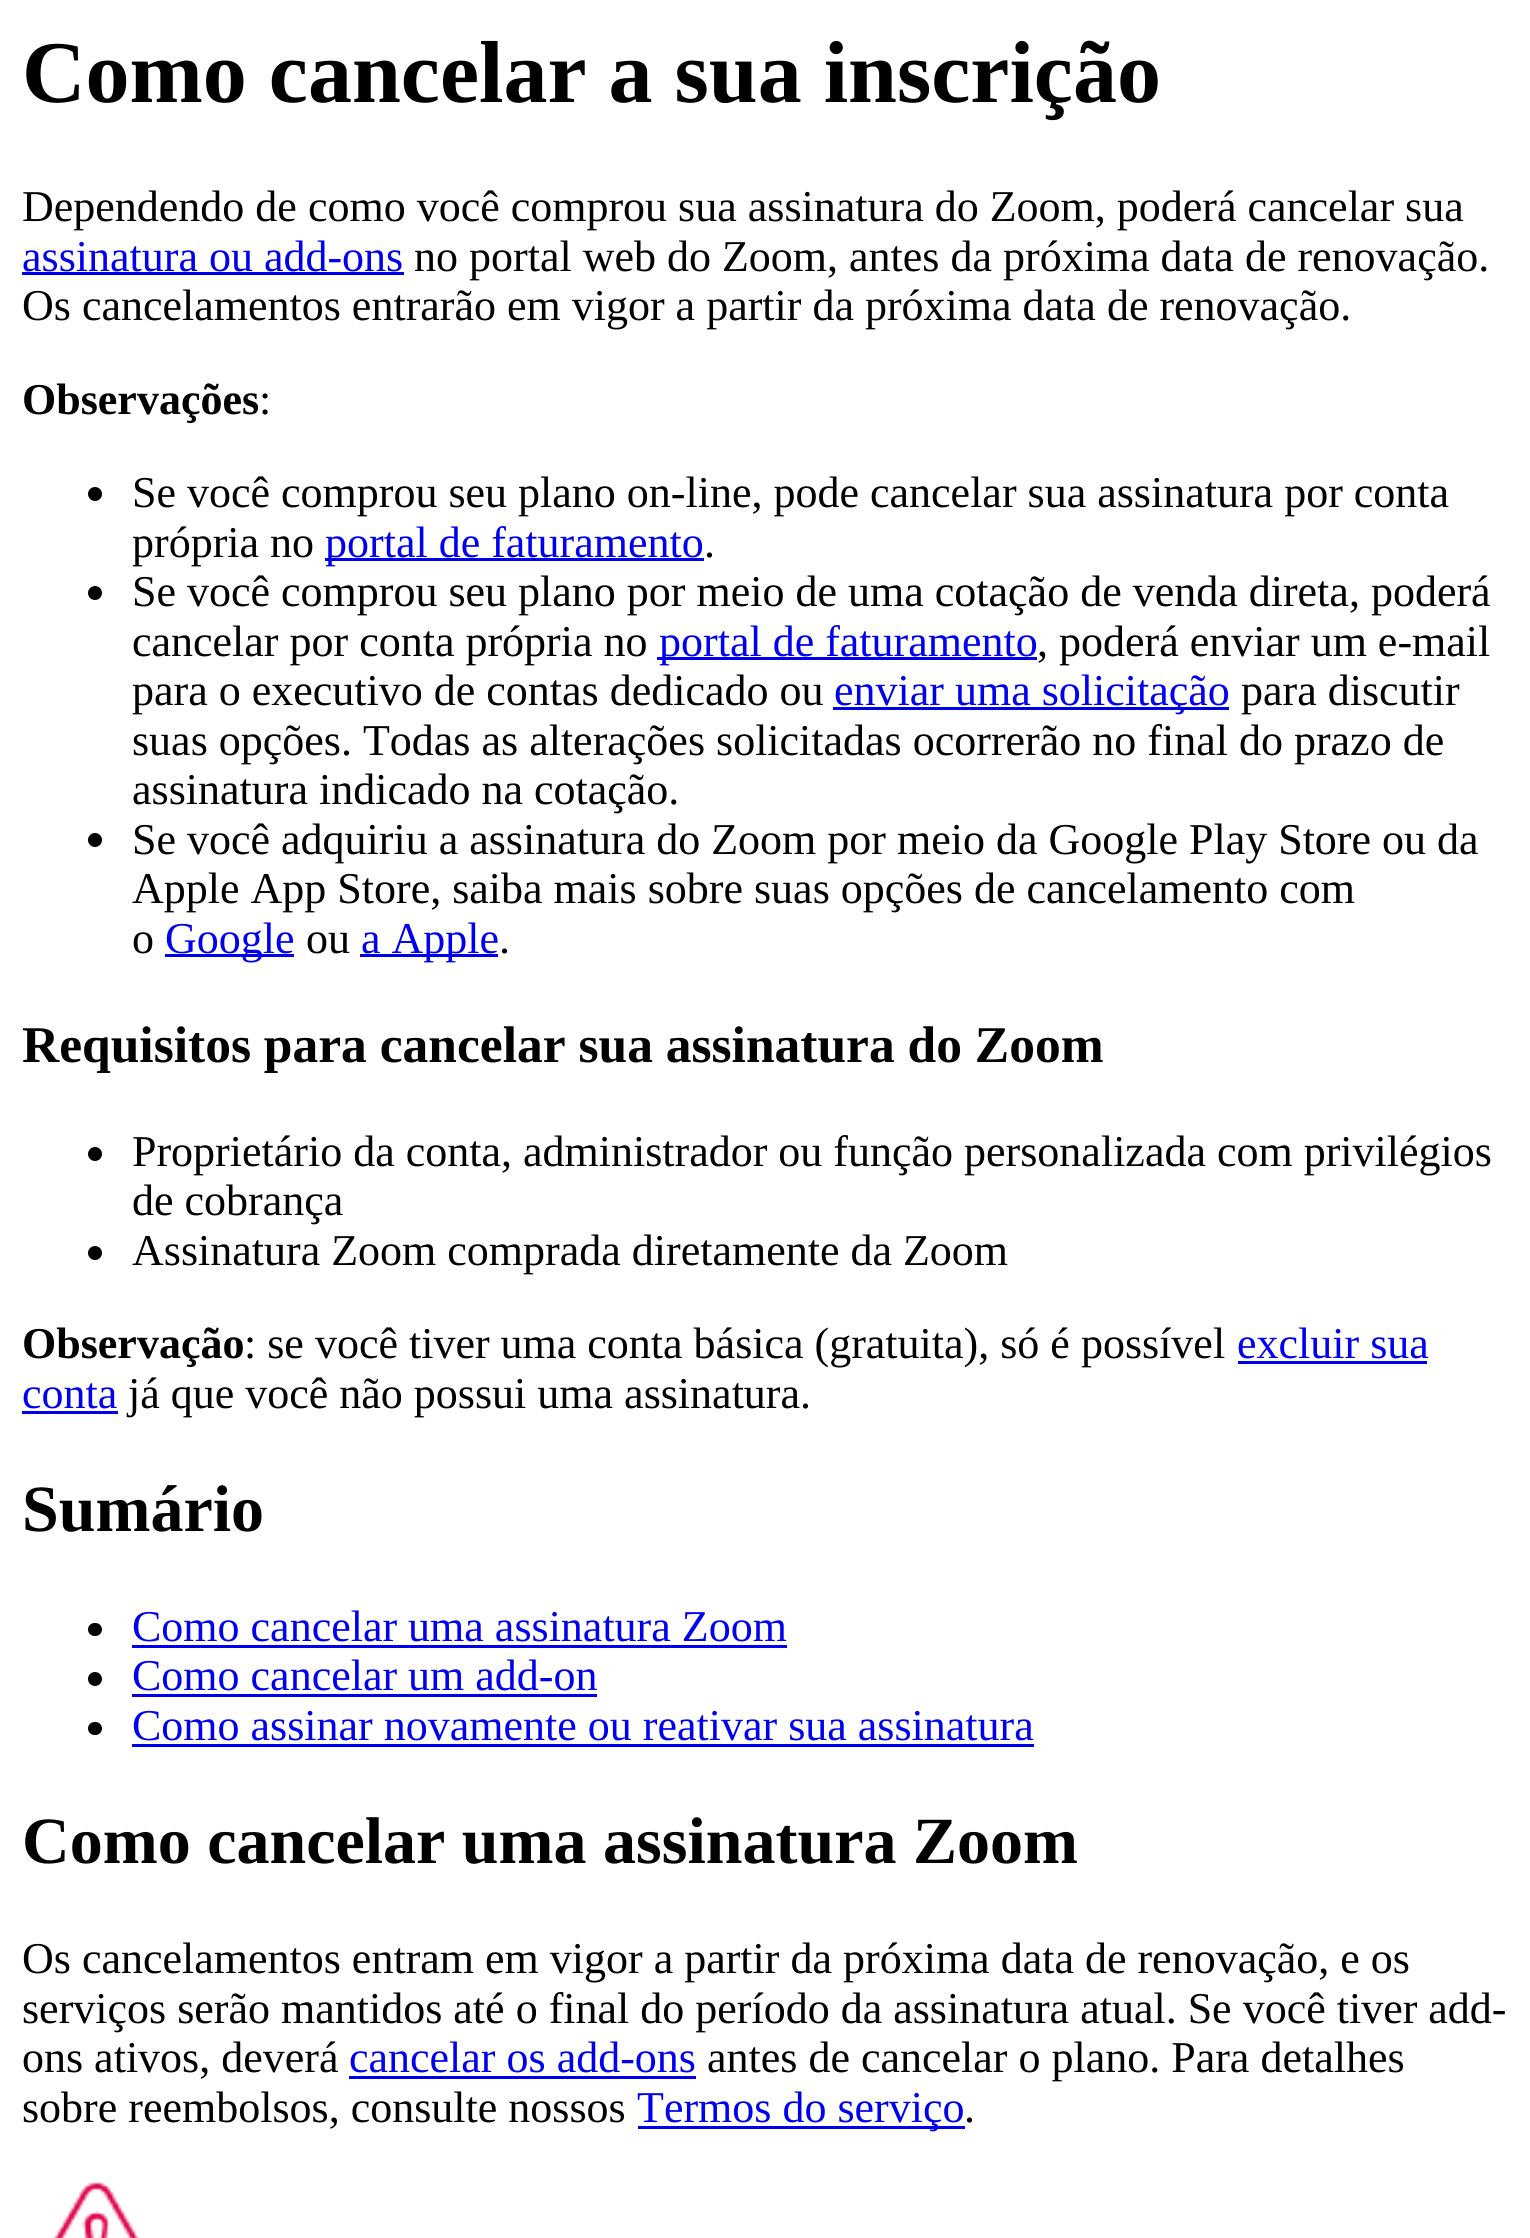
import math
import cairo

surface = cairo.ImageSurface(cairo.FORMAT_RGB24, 1530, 2238)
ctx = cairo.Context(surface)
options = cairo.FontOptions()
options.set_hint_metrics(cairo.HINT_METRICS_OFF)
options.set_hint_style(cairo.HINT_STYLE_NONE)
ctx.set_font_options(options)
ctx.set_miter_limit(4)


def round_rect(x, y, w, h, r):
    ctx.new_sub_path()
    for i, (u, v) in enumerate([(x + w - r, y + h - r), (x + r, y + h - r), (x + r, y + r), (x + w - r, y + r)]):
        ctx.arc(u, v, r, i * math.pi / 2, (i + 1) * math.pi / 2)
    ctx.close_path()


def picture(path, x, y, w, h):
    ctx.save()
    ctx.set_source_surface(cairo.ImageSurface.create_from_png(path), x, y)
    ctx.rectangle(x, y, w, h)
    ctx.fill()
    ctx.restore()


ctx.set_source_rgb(1, 1, 1)
ctx.paint()
ctx.select_font_face("Liberation Serif", cairo.FONT_SLANT_NORMAL, cairo.FONT_WEIGHT_BOLD)
ctx.set_font_size(88)
ctx.set_source_rgb(0, 0, 0)
ctx.move_to(22, 102)
ctx.show_text("Como cancelar a sua inscrição")
ctx.select_font_face("Liberation Serif")
ctx.set_font_size(44)
ctx.move_to(22, 221)
ctx.show_text("Dependendo de como você comprou sua assinatura do Zoom, poderá cancelar sua")
ctx.set_source_rgb(0, 0, 0.933)
ctx.move_to(22, 271)
ctx.show_text("assinatura ou add-ons")
ctx.rectangle(22, 272, 382, 3)
ctx.fill()
ctx.set_source_rgb(0, 0, 0)
ctx.move_to(414, 271)
ctx.show_text("no portal web do Zoom, antes da próxima data de renovação.")
ctx.move_to(22, 320)
ctx.show_text("Os cancelamentos entrarão em vigor a partir da próxima data de renovação.")
ctx.select_font_face("Liberation Serif", cairo.FONT_SLANT_NORMAL, cairo.FONT_WEIGHT_BOLD)
ctx.move_to(22, 414)
ctx.show_text("Observações")
ctx.select_font_face("Liberation Serif")
ctx.move_to(259, 414)
ctx.show_text(":")
ctx.new_path()
ctx.arc(95, 494, 7, 0, 2 * math.pi)
ctx.fill()
ctx.move_to(132, 507)
ctx.show_text("Se você comprou seu plano on-line, pode cancelar sua assinatura por conta")
ctx.move_to(132, 557)
ctx.show_text("própria no")
ctx.set_source_rgb(0, 0, 0.933)
ctx.rectangle(325, 558, 379, 3)
ctx.fill()
ctx.move_to(325, 557)
ctx.show_text("portal de faturamento")
ctx.set_source_rgb(0, 0, 0)
ctx.move_to(704, 557)
ctx.show_text(".")
ctx.new_path()
ctx.arc(95, 593, 7, 0, 2 * math.pi)
ctx.fill()
ctx.move_to(132, 606)
ctx.show_text("Se você comprou seu plano por meio de uma cotação de venda direta, poderá")
ctx.move_to(132, 656)
ctx.show_text("cancelar por conta própria no")
ctx.set_source_rgb(0, 0, 0.933)
ctx.rectangle(657, 657, 380, 3)
ctx.fill()
ctx.move_to(659, 656)
ctx.show_text("portal de faturamento")
ctx.set_source_rgb(0, 0, 0)
ctx.move_to(1037, 656)
ctx.show_text(", poderá enviar um e-mail")
ctx.move_to(132, 705)
ctx.show_text("para o executivo de contas dedicado ou")
ctx.set_source_rgb(0, 0, 0.933)
ctx.rectangle(833, 707, 396, 3)
ctx.fill()
ctx.move_to(834, 705)
ctx.show_text("enviar uma solicitação")
ctx.set_source_rgb(0, 0, 0)
ctx.move_to(1241, 705)
ctx.show_text("para discutir")
ctx.move_to(132, 755)
ctx.show_text("suas opções. Todas as alterações solicitadas ocorrerão no final do prazo de")
ctx.move_to(132, 804)
ctx.show_text("assinatura indicado na cotação.")
ctx.new_path()
ctx.arc(95, 840, 7, 0, 2 * math.pi)
ctx.fill()
ctx.move_to(132, 854)
ctx.show_text("Se você adquiriu a assinatura do Zoom por meio da Google Play Store ou da")
ctx.move_to(132, 903)
ctx.show_text("Apple App Store, saiba mais sobre suas opções de cancelamento com")
ctx.move_to(132, 953)
ctx.show_text("o")
ctx.set_source_rgb(0, 0, 0.933)
ctx.rectangle(165, 954, 129, 3)
ctx.fill()
ctx.move_to(165, 953)
ctx.show_text("Google")
ctx.set_source_rgb(0, 0, 0)
ctx.move_to(306, 953)
ctx.show_text("ou")
ctx.set_source_rgb(0, 0, 0.933)
ctx.rectangle(360, 954, 138, 3)
ctx.fill()
ctx.move_to(361, 953)
ctx.show_text("a Apple")
ctx.set_source_rgb(0, 0, 0)
ctx.move_to(499, 953)
ctx.show_text(".")
ctx.select_font_face("Liberation Serif", cairo.FONT_SLANT_NORMAL, cairo.FONT_WEIGHT_BOLD)
ctx.set_font_size(51.5)
ctx.move_to(22, 1062)
ctx.show_text("Requisitos para cancelar sua assinatura do Zoom")
ctx.new_path()
ctx.arc(95, 1154, 7, 0, 2 * math.pi)
ctx.fill()
ctx.select_font_face("Liberation Serif")
ctx.set_font_size(44)
ctx.move_to(132, 1166)
ctx.show_text("Proprietário da conta, administrador ou função personalizada com privilégios")
ctx.move_to(132, 1215)
ctx.show_text("de cobrança")
ctx.new_path()
ctx.arc(95, 1253, 7, 0, 2 * math.pi)
ctx.fill()
ctx.move_to(132, 1265)
ctx.show_text("Assinatura Zoom comprada diretamente da Zoom")
ctx.select_font_face("Liberation Serif", cairo.FONT_SLANT_NORMAL, cairo.FONT_WEIGHT_BOLD)
ctx.move_to(22, 1358)
ctx.show_text("Observação")
ctx.select_font_face("Liberation Serif")
ctx.move_to(244, 1358)
ctx.show_text(": se você tiver uma conta básica (gratuita), só é possível")
ctx.set_source_rgb(0, 0, 0.933)
ctx.move_to(1237, 1358)
ctx.show_text("excluir sua")
ctx.rectangle(1238, 1361, 189, 3)
ctx.fill()
ctx.move_to(22, 1408)
ctx.show_text("conta")
ctx.rectangle(22, 1411, 96, 3)
ctx.fill()
ctx.set_source_rgb(0, 0, 0)
ctx.move_to(128, 1408)
ctx.show_text("já que você não possui uma assinatura.")
ctx.select_font_face("Liberation Serif", cairo.FONT_SLANT_NORMAL, cairo.FONT_WEIGHT_BOLD)
ctx.set_font_size(66)
ctx.move_to(22, 1531)
ctx.show_text("Sumário")
round_rect(88, 1623, 14, 13, 6.5)
ctx.fill()
ctx.select_font_face("Liberation Serif")
ctx.set_font_size(44)
ctx.set_source_rgb(0, 0, 0.933)
ctx.move_to(132, 1641)
ctx.show_text("Como cancelar uma assinatura Zoom")
ctx.rectangle(132, 1645, 655, 3)
ctx.fill()
ctx.set_source_rgb(0, 0, 0)
ctx.arc(95, 1679, 7, 0, 2 * math.pi)
ctx.fill()
ctx.set_source_rgb(0, 0, 0.933)
ctx.move_to(132, 1690)
ctx.show_text("Como cancelar um add-on")
ctx.rectangle(132, 1694, 465, 3)
ctx.fill()
ctx.set_source_rgb(0, 0, 0)
round_rect(88, 1722, 14, 13, 6.5)
ctx.fill()
ctx.set_source_rgb(0, 0, 0.933)
ctx.move_to(132, 1740)
ctx.show_text("Como assinar novamente ou reativar sua assinatura")
ctx.rectangle(132, 1744, 902, 3)
ctx.fill()
ctx.select_font_face("Liberation Serif", cairo.FONT_SLANT_NORMAL, cairo.FONT_WEIGHT_BOLD)
ctx.set_font_size(66)
ctx.set_source_rgb(0, 0, 0)
ctx.move_to(22, 1863)
ctx.show_text("Como cancelar uma assinatura Zoom")
ctx.select_font_face("Liberation Serif")
ctx.set_font_size(44)
ctx.move_to(22, 1973)
ctx.show_text("Os cancelamentos entram em vigor a partir da próxima data de renovação, e os")
ctx.move_to(22, 2023)
ctx.show_text("serviços serão mantidos até o final do período da assinatura atual. Se você tiver add-")
ctx.move_to(22, 2072)
ctx.show_text("ons ativos, deverá")
ctx.set_source_rgb(0, 0, 0.933)
ctx.move_to(349, 2072)
ctx.show_text("cancelar os add-ons")
ctx.rectangle(349, 2076, 347, 3)
ctx.fill()
ctx.set_source_rgb(0, 0, 0)
ctx.move_to(707, 2072)
ctx.show_text("antes de cancelar o plano. Para detalhes")
ctx.move_to(22, 2122)
ctx.show_text("sobre reembolsos, consulte nossos")
ctx.set_source_rgb(0, 0, 0.933)
ctx.rectangle(638, 2126, 327, 3)
ctx.fill()
ctx.move_to(637, 2122)
ctx.show_text("Termos do serviço")
ctx.set_source_rgb(0, 0, 0)
ctx.move_to(964, 2122)
ctx.show_text(".")
picture("img1.png", 54, 2182, 85, 56)
surface.write_to_png("page.png")
